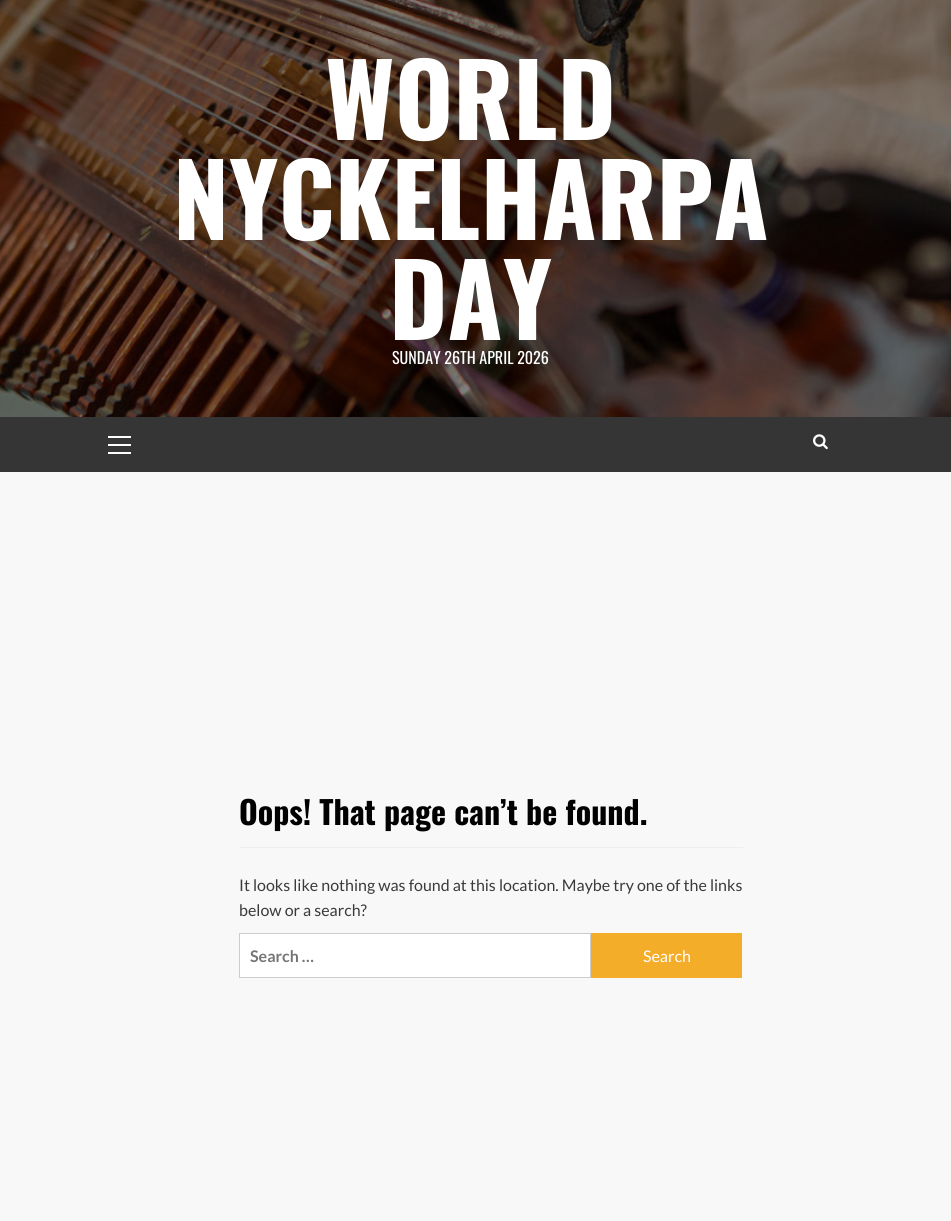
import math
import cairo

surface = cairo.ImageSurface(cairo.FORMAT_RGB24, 951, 1221)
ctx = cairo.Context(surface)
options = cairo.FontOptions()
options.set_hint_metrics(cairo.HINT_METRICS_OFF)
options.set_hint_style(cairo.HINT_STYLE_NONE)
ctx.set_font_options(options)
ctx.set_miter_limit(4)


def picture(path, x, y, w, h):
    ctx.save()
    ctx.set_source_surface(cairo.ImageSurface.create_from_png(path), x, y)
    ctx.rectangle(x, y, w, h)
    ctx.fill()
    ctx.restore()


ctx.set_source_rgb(0.969, 0.969, 0.969)
ctx.paint()
picture("img1.png", 0, 0, 951, 417)
ctx.select_font_face("Oswald", cairo.FONT_SLANT_NORMAL, cairo.FONT_WEIGHT_BOLD)
ctx.set_font_size(100)
ctx.set_source_rgb(1, 1, 1)
ctx.move_to(325, 140)
ctx.show_text("WORLD")
ctx.move_to(173, 240)
ctx.show_text("NYCKELHARPA")
ctx.move_to(389, 340)
ctx.show_text("DAY")
ctx.select_font_face("Oswald")
ctx.set_font_size(16)
ctx.move_to(392, 364)
ctx.show_text("SUNDAY 26TH APRIL 2026")
ctx.set_source_rgb(0.208, 0.208, 0.208)
ctx.rectangle(0, 417, 951, 55)
ctx.fill()
ctx.set_source_rgb(1, 1, 1)
ctx.rectangle(108, 444, 23, 2)
ctx.fill()
ctx.rectangle(108, 436, 23, 2)
ctx.fill()
ctx.rectangle(108, 452, 23, 2)
ctx.fill()
picture("img2.png", 813, 434, 15, 16)
ctx.set_source_rgb(0.933, 0.933, 0.933)
ctx.rectangle(239, 847, 504, 1)
ctx.fill()
ctx.select_font_face("Oswald", cairo.FONT_SLANT_NORMAL, cairo.FONT_WEIGHT_BOLD)
ctx.set_font_size(32)
ctx.set_source_rgb(0, 0, 0)
ctx.move_to(239, 825)
ctx.show_text("Oops! That page can’t be found.")
ctx.select_font_face("Lato")
ctx.set_font_size(16)
ctx.set_source_rgb(0.227, 0.227, 0.227)
ctx.move_to(239, 891)
ctx.show_text("It looks like nothing was found at this location. Maybe try one of the links")
ctx.move_to(239, 916)
ctx.show_text("below or a search?")
ctx.set_source_rgb(1, 1, 1)
ctx.rectangle(239.5, 933.5, 351, 44)
ctx.fill_preserve()
ctx.set_source_rgb(0.8, 0.8, 0.8)
ctx.set_line_width(1)
ctx.stroke()
ctx.select_font_face("Lato", cairo.FONT_SLANT_NORMAL, cairo.FONT_WEIGHT_BOLD)
ctx.set_source_rgb(0.459, 0.459, 0.459)
ctx.move_to(250, 962)
ctx.show_text("Search …")
ctx.set_source_rgb(0.953, 0.678, 0.161)
ctx.rectangle(591, 933, 151, 45)
ctx.fill()
ctx.select_font_face("Lato")
ctx.set_source_rgb(1, 1, 1)
ctx.move_to(643, 962)
ctx.show_text("Search")
surface.write_to_png("page.png")
